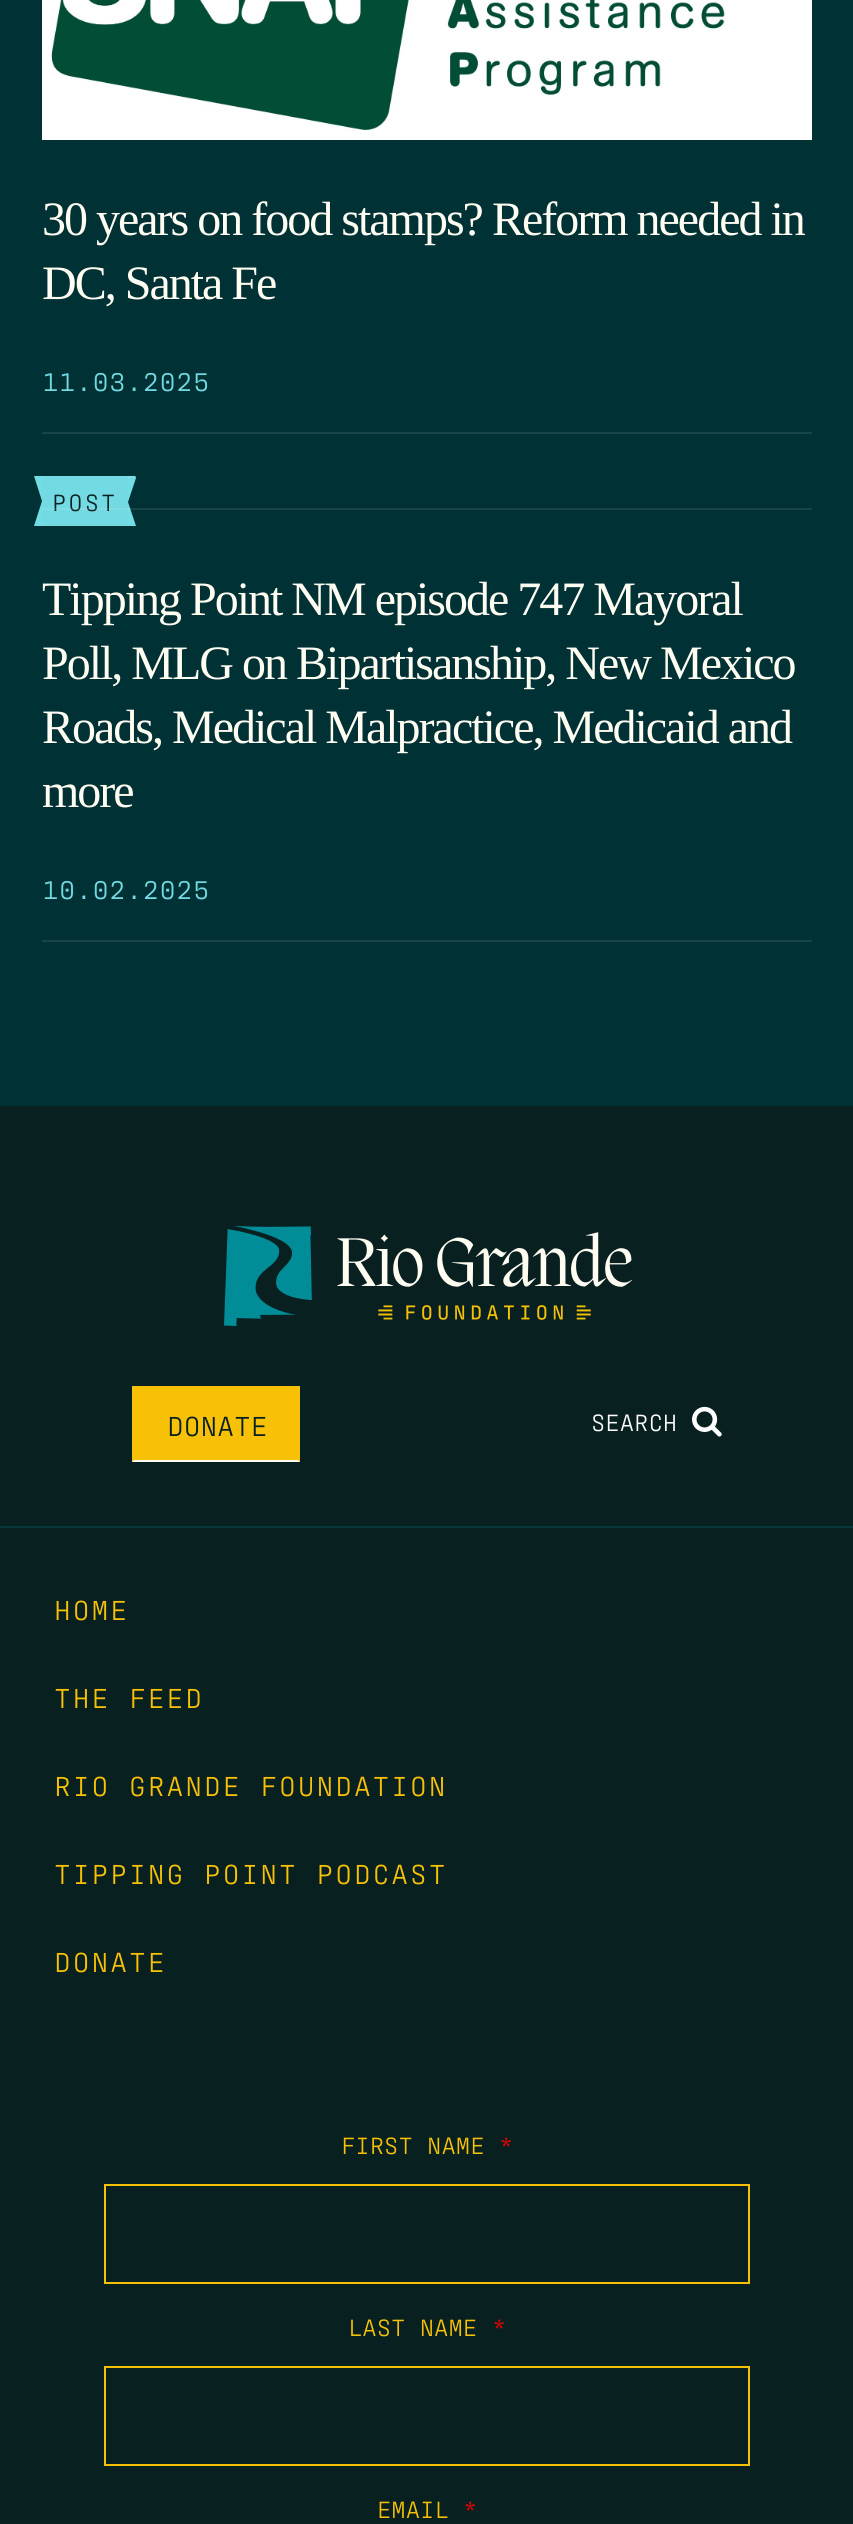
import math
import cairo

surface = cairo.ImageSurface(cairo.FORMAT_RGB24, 853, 2524)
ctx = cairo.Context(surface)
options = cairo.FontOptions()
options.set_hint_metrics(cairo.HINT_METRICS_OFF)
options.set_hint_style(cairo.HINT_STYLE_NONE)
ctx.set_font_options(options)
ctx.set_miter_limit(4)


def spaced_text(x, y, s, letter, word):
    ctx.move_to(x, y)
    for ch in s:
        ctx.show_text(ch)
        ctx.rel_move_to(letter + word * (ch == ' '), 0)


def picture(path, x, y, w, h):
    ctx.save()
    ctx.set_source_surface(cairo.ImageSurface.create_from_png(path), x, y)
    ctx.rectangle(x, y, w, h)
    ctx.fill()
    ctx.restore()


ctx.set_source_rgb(0.039, 0.125, 0.129)
ctx.paint()
ctx.set_source_rgb(0, 0.192, 0.204)
ctx.rectangle(0, 0, 853, 1106)
ctx.fill()
ctx.set_source_rgb(0.102, 0.271, 0.278)
ctx.rectangle(42, 432, 770, 2)
ctx.fill()
picture("img1.png", 42, 0, 770, 140)
ctx.select_font_face("Liberation Serif")
ctx.set_font_size(48)
ctx.set_source_rgb(1, 0.988, 0.949)
spaced_text(42, 235, "30 years on food stamps? Reform needed in", -2, 0)
spaced_text(42, 299, "DC, Santa Fe", -2, 0)
ctx.select_font_face("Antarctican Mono")
ctx.set_font_size(28)
ctx.set_source_rgb(0.451, 0.855, 0.89)
ctx.move_to(42, 391)
ctx.show_text("11.03.2025")
ctx.set_source_rgb(0.102, 0.271, 0.278)
ctx.rectangle(42, 940, 770, 2)
ctx.fill()
ctx.set_source_rgb(0.451, 0.855, 0.89)
ctx.rectangle(42, 476, 86, 50)
ctx.fill()
ctx.set_source_rgb(0.451, 0.867, 0.902)
ctx.set_fill_rule(cairo.FILL_RULE_EVEN_ODD)
ctx.new_path()
ctx.move_to(42, 526)
ctx.line_to(34, 526)
ctx.line_to(42, 501)
ctx.close_path()
ctx.move_to(42, 501)
ctx.line_to(34, 476)
ctx.line_to(42, 476)
ctx.close_path()
ctx.fill()
ctx.set_font_size(24)
ctx.set_source_rgb(0.039, 0.125, 0.129)
spaced_text(52, 511, "POST", 2, 0)
picture("img2.png", 128, 476, 8, 50)
ctx.set_source_rgba(1, 0.988, 0.949, 0.1)
ctx.rectangle(128, 476, 8, 2)
ctx.fill()
ctx.set_source_rgba(1, 0.961, 0.922, 0.1)
ctx.rectangle(42, 508, 770, 2)
ctx.fill()
ctx.select_font_face("Liberation Serif")
ctx.set_font_size(48)
ctx.set_source_rgb(1, 0.988, 0.949)
spaced_text(42, 615, "Tipping Point NM episode 747 Mayoral", -2, 0)
spaced_text(42, 679, "Poll, MLG on Bipartisanship, New Mexico", -2, 0)
spaced_text(42, 743, "Roads, Medical Malpractice, Medicaid and", -2, 0)
spaced_text(42, 807, "more", -2, 0)
ctx.select_font_face("Antarctican Mono")
ctx.set_font_size(28)
ctx.set_source_rgb(0.451, 0.855, 0.89)
ctx.move_to(42, 899)
ctx.show_text("10.02.2025")
ctx.set_source_rgb(0.031, 0.212, 0.224)
ctx.rectangle(0, 1526, 853, 2)
ctx.fill()
picture("img3.png", 224, 1226, 408, 100)
ctx.set_source_rgb(0.961, 0.757, 0.024)
ctx.rectangle(132, 1386, 168, 76)
ctx.fill()
ctx.set_source_rgb(1, 0.988, 0.949)
ctx.set_fill_rule(cairo.FILL_RULE_WINDING)
ctx.new_path()
ctx.move_to(300, 1462)
ctx.line_to(132, 1462)
ctx.line_to(134, 1460)
ctx.line_to(298, 1460)
ctx.close_path()
ctx.fill()
ctx.set_source_rgb(0.039, 0.125, 0.129)
ctx.move_to(167, 1436)
ctx.show_text("DONATE")
ctx.set_font_size(24)
ctx.set_source_rgb(1, 1, 1)
ctx.move_to(591, 1431)
ctx.show_text("SEARCH")
picture("img4.png", 692, 1406, 30, 31)
ctx.set_font_size(28)
ctx.set_source_rgb(0.961, 0.757, 0.024)
spaced_text(54, 1620, "HOME", 2, 0)
spaced_text(54, 1708, "THE FEED", 2, 0)
spaced_text(54, 1796, "RIO GRANDE FOUNDATION", 2, 0)
spaced_text(54, 1884, "TIPPING POINT PODCAST", 2, 0)
spaced_text(54, 1972, "DONATE", 2, 0)
ctx.set_font_size(24)
ctx.move_to(341, 2154)
ctx.show_text("FIRST NAME")
ctx.set_source_rgb(0.91, 0, 0)
ctx.move_to(499, 2154)
ctx.show_text("*")
ctx.rectangle(105, 2185, 644, 98)
ctx.set_source_rgb(0.961, 0.757, 0.024)
ctx.stroke()
ctx.move_to(348, 2336)
ctx.show_text("LAST NAME")
ctx.set_source_rgb(0.91, 0, 0)
ctx.move_to(492, 2336)
ctx.show_text("*")
ctx.rectangle(105, 2367, 644, 98)
ctx.set_source_rgb(0.961, 0.757, 0.024)
ctx.stroke()
ctx.move_to(377, 2518)
ctx.show_text("EMAIL")
ctx.set_source_rgb(0.91, 0, 0)
ctx.move_to(463, 2518)
ctx.show_text("*")
surface.write_to_png("page.png")
